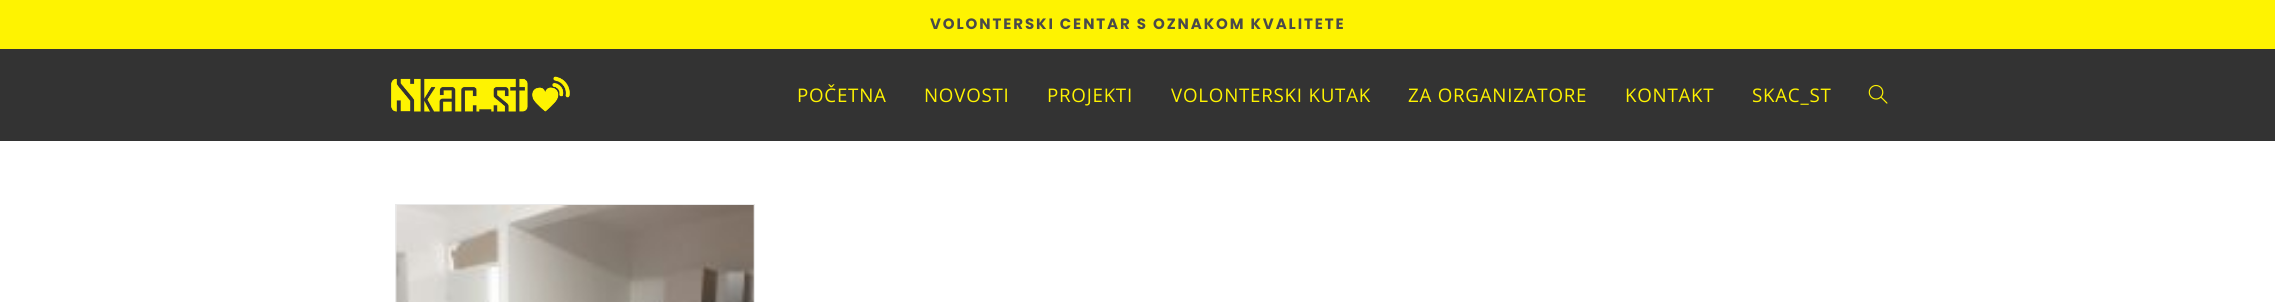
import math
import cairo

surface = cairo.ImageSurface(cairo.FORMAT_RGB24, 2275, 302)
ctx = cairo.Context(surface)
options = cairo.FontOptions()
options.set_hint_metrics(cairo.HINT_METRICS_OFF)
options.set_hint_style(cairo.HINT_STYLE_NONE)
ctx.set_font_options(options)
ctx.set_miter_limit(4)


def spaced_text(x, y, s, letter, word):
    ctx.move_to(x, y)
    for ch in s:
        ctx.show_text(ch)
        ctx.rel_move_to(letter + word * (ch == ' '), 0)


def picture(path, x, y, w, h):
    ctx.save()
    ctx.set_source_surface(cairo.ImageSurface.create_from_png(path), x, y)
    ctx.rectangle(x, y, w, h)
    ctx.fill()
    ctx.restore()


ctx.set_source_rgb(1, 1, 1)
ctx.paint()
ctx.set_source_rgb(0.996, 0.953, 0.004)
ctx.rectangle(0, 0, 2275, 49)
ctx.fill()
ctx.select_font_face("Poppins", cairo.FONT_SLANT_NORMAL, cairo.FONT_WEIGHT_BOLD)
ctx.set_font_size(15)
ctx.set_source_rgb(0.29, 0.29, 0.29)
spaced_text(930, 29, "VOLONTERSKI CENTAR S OZNAKOM KVALITETE", 1.9, 0)
ctx.set_source_rgb(0.2, 0.2, 0.2)
ctx.rectangle(0, 49, 2275, 92)
ctx.fill()
picture("img1.png", 391, 76, 179, 36)
ctx.select_font_face("Open Sans")
ctx.set_font_size(18.75)
ctx.set_source_rgb(0.996, 0.953, 0.004)
spaced_text(797, 102, "POČETNA", 0.75, 0)
spaced_text(924, 102, "NOVOSTI", 0.75, 0)
spaced_text(1047, 102, "PROJEKTI", 0.75, 0)
spaced_text(1171, 102, "VOLONTERSKI KUTAK", 0.75, 0)
spaced_text(1408, 102, "ZA ORGANIZATORE", 0.75, 0)
spaced_text(1625, 102, "KONTAKT", 0.75, 0)
spaced_text(1752, 102, "SKAC_ST", 0.75, 0)
picture("img2.png", 1868, 84, 20, 20)
ctx.rectangle(395.5, 204.5, 359, 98)
ctx.set_source_rgb(0.914, 0.914, 0.914)
ctx.set_line_width(1)
ctx.stroke()
picture("img3.png", 396, 205, 358, 97)
surface.write_to_png("page.png")
